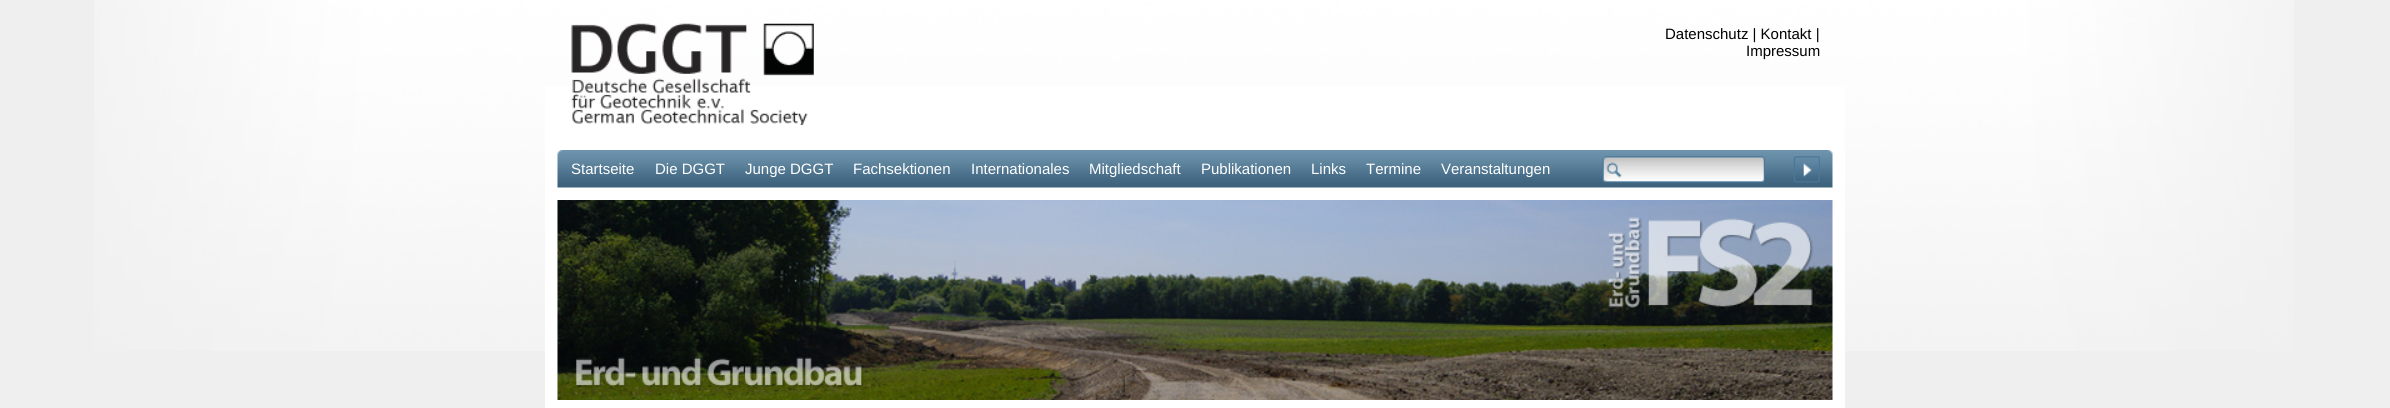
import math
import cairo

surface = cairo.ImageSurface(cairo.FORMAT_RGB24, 2390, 408)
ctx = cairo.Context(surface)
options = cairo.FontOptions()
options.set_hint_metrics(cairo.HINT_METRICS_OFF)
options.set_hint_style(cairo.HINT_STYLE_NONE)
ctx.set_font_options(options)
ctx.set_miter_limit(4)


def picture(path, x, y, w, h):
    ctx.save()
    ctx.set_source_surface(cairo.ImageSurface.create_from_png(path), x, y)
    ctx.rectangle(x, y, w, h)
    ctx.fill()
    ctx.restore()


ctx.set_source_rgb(0.937, 0.937, 0.937)
ctx.paint()
picture("img1.png", 94, 0, 2200, 351)
ctx.set_source_rgb(1, 1, 1)
ctx.rectangle(545, 86, 1300, 322)
ctx.fill()
picture("img2.png", 571, 23, 243, 102)
ctx.select_font_face("Liberation Sans")
ctx.set_font_size(15)
ctx.set_source_rgb(0, 0, 0)
ctx.move_to(1665, 39)
ctx.show_text("Datenschutz | Kontakt |")
ctx.move_to(1746, 56)
ctx.show_text("Impressum")
picture("img3.png", 557, 150, 1276, 38)
ctx.set_source_rgb(1, 1, 1)
ctx.move_to(571, 174)
ctx.show_text("Startseite")
ctx.move_to(655, 174)
ctx.show_text("Die DGGT")
ctx.move_to(745, 174)
ctx.show_text("Junge DGGT")
ctx.move_to(853, 174)
ctx.show_text("Fachsektionen")
ctx.move_to(971, 174)
ctx.show_text("Internationales")
ctx.move_to(1089, 174)
ctx.show_text("Mitgliedschaft")
ctx.move_to(1201, 174)
ctx.show_text("Publikationen")
ctx.move_to(1311, 174)
ctx.show_text("Links")
ctx.move_to(1366, 174)
ctx.show_text("Termine")
ctx.move_to(1441, 174)
ctx.show_text("Veranstaltungen")
picture("img4.png", 1602, 156, 163, 27)
picture("img5.png", 1793, 156, 27, 27)
picture("img6.png", 557, 200, 1276, 200)
surface.write_to_png("page.png")
